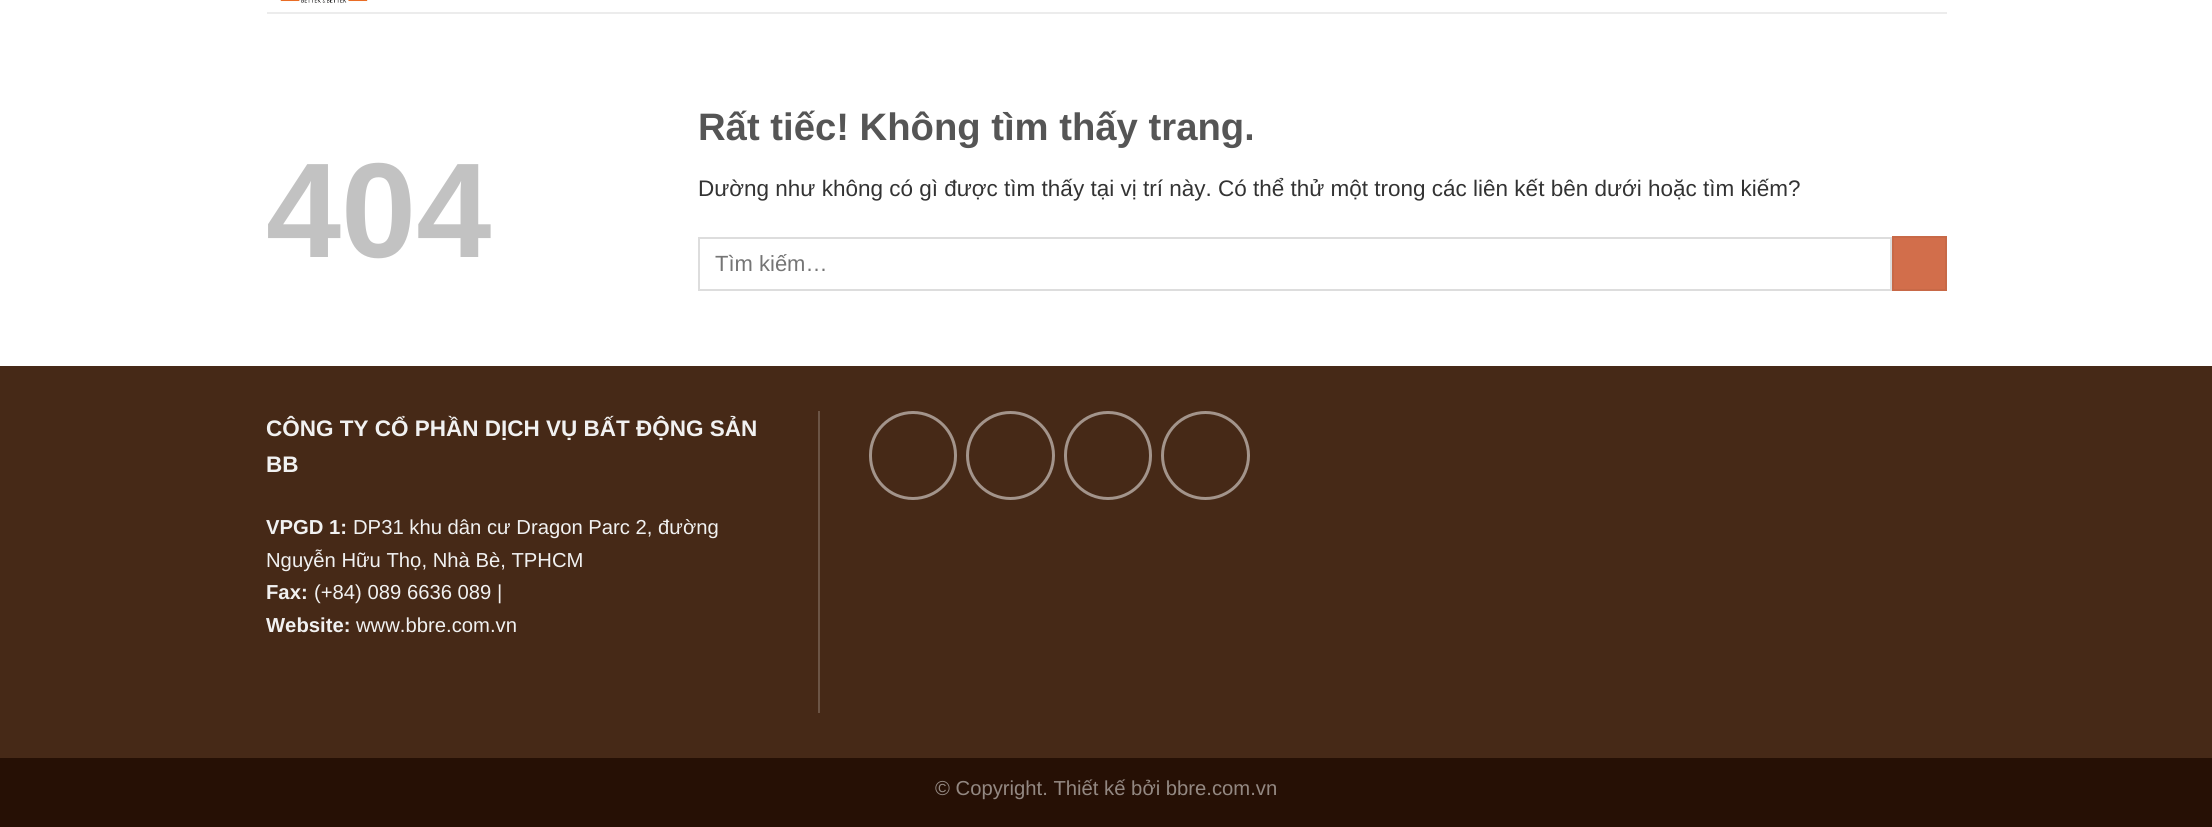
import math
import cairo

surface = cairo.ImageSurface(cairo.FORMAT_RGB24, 2212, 827)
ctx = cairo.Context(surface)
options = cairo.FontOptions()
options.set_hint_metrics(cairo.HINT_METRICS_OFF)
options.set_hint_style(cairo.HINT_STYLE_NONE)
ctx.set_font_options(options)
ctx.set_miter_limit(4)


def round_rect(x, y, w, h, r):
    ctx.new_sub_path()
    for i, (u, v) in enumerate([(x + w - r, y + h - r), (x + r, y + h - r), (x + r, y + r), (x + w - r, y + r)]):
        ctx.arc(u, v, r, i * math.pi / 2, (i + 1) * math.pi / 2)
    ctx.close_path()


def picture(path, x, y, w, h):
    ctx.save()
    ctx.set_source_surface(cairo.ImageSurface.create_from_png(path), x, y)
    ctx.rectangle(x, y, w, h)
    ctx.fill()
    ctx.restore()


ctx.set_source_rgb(1, 1, 1)
ctx.paint()
picture("img1.png", 280, 0, 88, 3)
ctx.set_source_rgb(0.922, 0.922, 0.922)
ctx.rectangle(267, 12, 1680, 2)
ctx.fill()
ctx.select_font_face("Liberation Sans", cairo.FONT_SLANT_NORMAL, cairo.FONT_WEIGHT_BOLD)
ctx.set_font_size(135)
ctx.set_source_rgb(0.761, 0.761, 0.761)
ctx.move_to(266, 257)
ctx.show_text("404")
ctx.set_font_size(38.25)
ctx.set_source_rgb(0.333, 0.333, 0.333)
ctx.move_to(698, 140)
ctx.show_text("Rất tiếc! Không tìm thấy trang.")
ctx.select_font_face("Liberation Sans")
ctx.set_font_size(22.5)
ctx.set_source_rgb(0.2, 0.2, 0.2)
ctx.move_to(698, 196)
ctx.show_text("Dường như không có gì được tìm thấy tại vị trí này. Có thể thử một trong các liên kết bên dưới hoặc tìm kiếm?")
ctx.rectangle(699, 238, 1192, 52)
ctx.set_source_rgb(0.867, 0.867, 0.867)
ctx.stroke()
ctx.set_font_size(22)
ctx.set_source_rgb(0.459, 0.459, 0.459)
ctx.move_to(715, 271)
ctx.show_text("Tìm kiếm…")
ctx.set_source_rgb(0.824, 0.431, 0.294)
ctx.rectangle(1893, 237, 53, 53)
ctx.fill_preserve()
ctx.set_source_rgb(0.784, 0.412, 0.278)
ctx.stroke()
ctx.set_source_rgb(0.275, 0.161, 0.09)
ctx.rectangle(0, 366, 2212, 392)
ctx.fill()
ctx.set_source_rgb(0.42, 0.329, 0.271)
ctx.rectangle(818, 411, 2, 302)
ctx.fill()
ctx.select_font_face("Liberation Sans", cairo.FONT_SLANT_NORMAL, cairo.FONT_WEIGHT_BOLD)
ctx.set_font_size(22.5)
ctx.set_source_rgb(0.945, 0.945, 0.945)
ctx.move_to(266, 436)
ctx.show_text("CÔNG TY CỔ PHẦN DỊCH VỤ BẤT ĐỘNG SẢN")
ctx.move_to(266, 472)
ctx.show_text("BB")
ctx.set_font_size(20.25)
ctx.move_to(266, 534)
ctx.show_text("VPGD 1:")
ctx.select_font_face("Liberation Sans")
ctx.move_to(353, 534)
ctx.show_text("DP31 khu dân cư Dragon Parc 2, đường")
ctx.move_to(266, 567)
ctx.show_text("Nguyễn Hữu Thọ, Nhà Bè, TPHCM")
ctx.select_font_face("Liberation Sans", cairo.FONT_SLANT_NORMAL, cairo.FONT_WEIGHT_BOLD)
ctx.move_to(266, 599)
ctx.show_text("Fax:")
ctx.select_font_face("Liberation Sans")
ctx.move_to(314, 599)
ctx.show_text("(+84) 089 6636 089 |")
ctx.select_font_face("Liberation Sans", cairo.FONT_SLANT_NORMAL, cairo.FONT_WEIGHT_BOLD)
ctx.move_to(266, 632)
ctx.show_text("Website:")
ctx.select_font_face("Liberation Sans")
ctx.move_to(356, 632)
ctx.show_text("www.bbre.com.vn")
round_rect(870.5, 412.5, 85, 86, 42.5)
ctx.set_source_rgb(0.639, 0.58, 0.545)
ctx.set_line_width(3)
ctx.stroke()
ctx.arc(1010.5, 455.5, 43, 0, 2 * math.pi)
ctx.stroke()
round_rect(1065.5, 412.5, 85, 86, 42.5)
ctx.stroke()
ctx.arc(1205.5, 455.5, 43, 0, 2 * math.pi)
ctx.stroke()
ctx.set_source_rgb(0.149, 0.063, 0.02)
ctx.rectangle(0, 758, 2212, 69)
ctx.fill()
ctx.set_source_rgb(0.576, 0.533, 0.51)
ctx.move_to(935, 795)
ctx.show_text("© Copyright. Thiết kế bởi bbre.com.vn")
surface.write_to_png("page.png")
